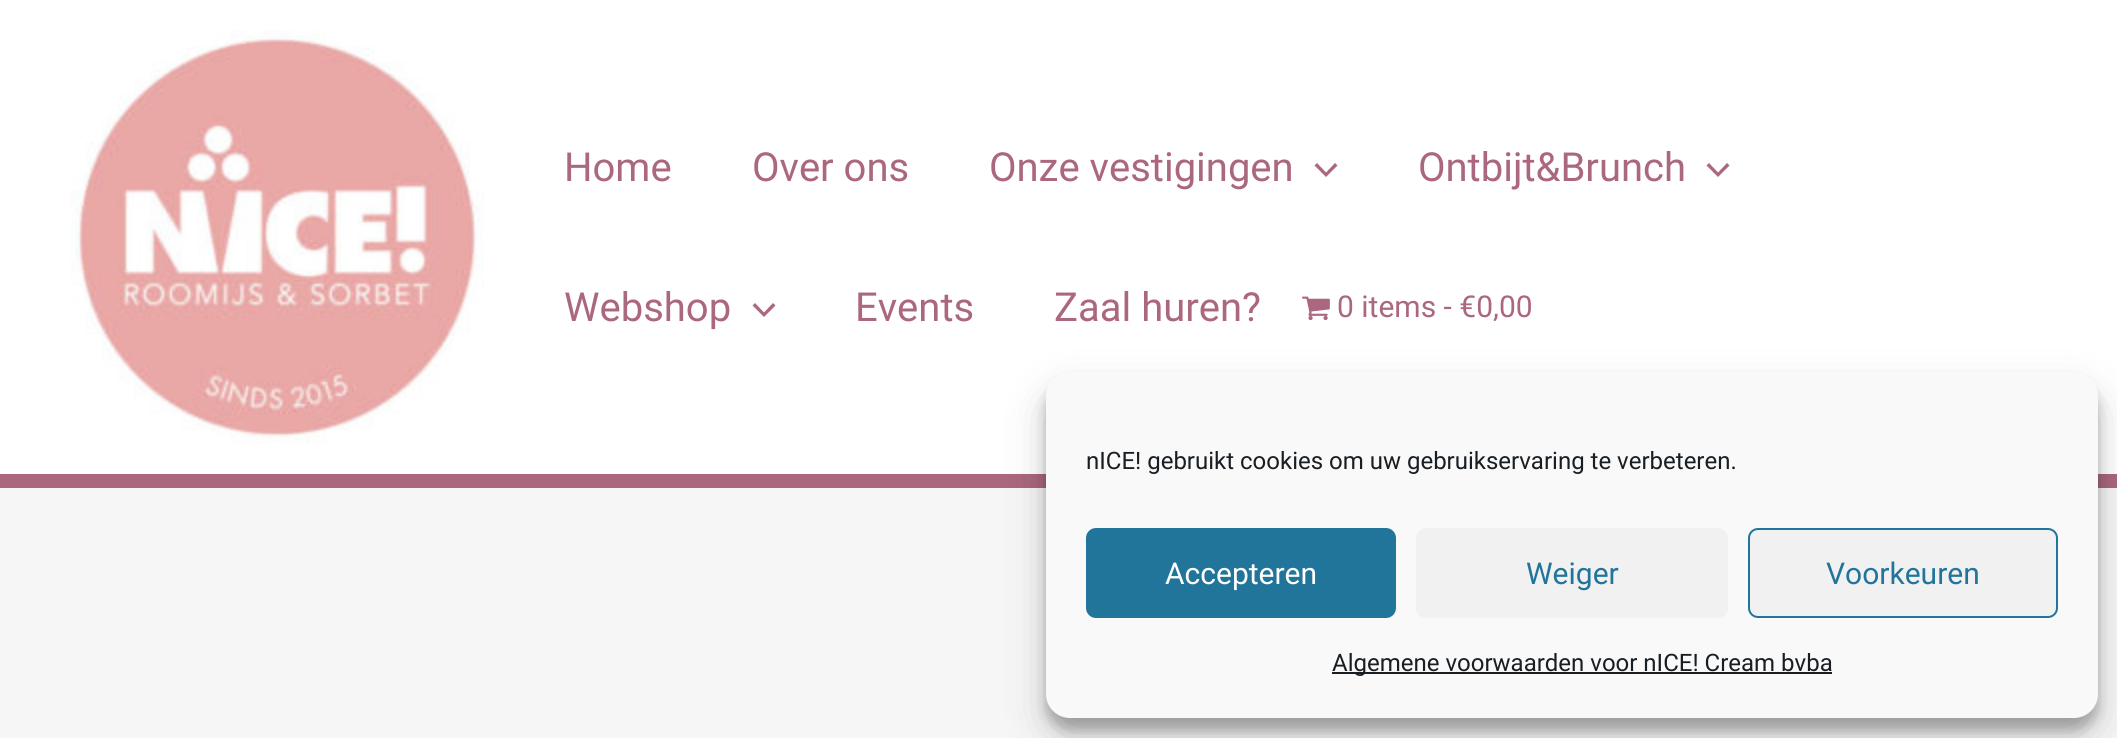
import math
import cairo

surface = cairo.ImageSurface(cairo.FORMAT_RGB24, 2117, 738)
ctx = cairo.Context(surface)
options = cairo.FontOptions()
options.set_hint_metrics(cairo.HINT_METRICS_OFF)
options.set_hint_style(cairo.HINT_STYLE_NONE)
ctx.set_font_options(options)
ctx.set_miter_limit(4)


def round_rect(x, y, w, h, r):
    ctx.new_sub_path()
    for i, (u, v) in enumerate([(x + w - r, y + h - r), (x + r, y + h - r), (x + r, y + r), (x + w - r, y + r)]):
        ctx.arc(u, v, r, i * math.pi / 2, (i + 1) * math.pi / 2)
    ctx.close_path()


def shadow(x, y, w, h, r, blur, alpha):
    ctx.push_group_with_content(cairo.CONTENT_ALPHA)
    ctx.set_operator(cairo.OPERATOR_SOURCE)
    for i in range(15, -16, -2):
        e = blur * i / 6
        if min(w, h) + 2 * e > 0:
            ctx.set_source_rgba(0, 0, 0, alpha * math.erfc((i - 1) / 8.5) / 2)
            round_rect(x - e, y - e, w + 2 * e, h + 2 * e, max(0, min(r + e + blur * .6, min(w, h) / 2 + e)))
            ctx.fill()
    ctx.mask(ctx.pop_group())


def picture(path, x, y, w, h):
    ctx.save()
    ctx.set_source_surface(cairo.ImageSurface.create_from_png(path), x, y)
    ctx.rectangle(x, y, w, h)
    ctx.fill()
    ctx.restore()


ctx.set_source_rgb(0.961, 0.961, 0.961)
ctx.paint()
ctx.set_source_rgb(1, 1, 1)
ctx.rectangle(0, 0, 2117, 474)
ctx.fill()
ctx.set_source_rgb(0.671, 0.404, 0.502)
ctx.rectangle(0, 474, 2117, 14)
ctx.fill()
picture("img1.png", 70, 30, 414, 414)
ctx.select_font_face("Roboto")
ctx.set_font_size(40)
ctx.move_to(564, 181)
ctx.show_text("Home")
ctx.move_to(752, 181)
ctx.show_text("Over ons")
ctx.move_to(989, 181)
ctx.show_text("Onze vestigingen")
ctx.new_path()
ctx.move_to(1314.5, 165.5)
ctx.line_to(1326, 177)
ctx.line_to(1337.5, 165.5)
ctx.line_to(1335, 163)
ctx.line_to(1326, 172.5)
ctx.line_to(1317, 163)
ctx.close_path()
ctx.fill()
ctx.move_to(1418, 181)
ctx.show_text("Ontbijt&Brunch")
ctx.new_path()
ctx.move_to(1706.5, 165.5)
ctx.line_to(1718, 177)
ctx.line_to(1729.5, 165.5)
ctx.line_to(1727, 163)
ctx.line_to(1718, 172.5)
ctx.line_to(1709, 163)
ctx.close_path()
ctx.fill()
ctx.move_to(564, 321)
ctx.show_text("Webshop")
ctx.new_path()
ctx.move_to(752.5, 305.5)
ctx.line_to(764, 317)
ctx.line_to(775.5, 305.5)
ctx.line_to(773, 303)
ctx.line_to(764, 312.5)
ctx.line_to(755, 303)
ctx.close_path()
ctx.fill()
ctx.move_to(855, 321)
ctx.show_text("Events")
ctx.move_to(1054, 321)
ctx.show_text("Zaal huren?")
picture("img2.png", 1302, 296, 28, 25)
ctx.set_font_size(30)
ctx.move_to(1337, 317)
ctx.show_text("0 items - €0,00")
ctx.set_source_rgb(0, 0, 0)
shadow(1046, 384, 1052, 346, 24, 6, 0.23)
shadow(1046, 392, 1052, 346, 24, 20, 0.19)
ctx.set_source_rgb(0.976, 0.976, 0.976)
round_rect(1046, 372, 1052, 346, 24)
ctx.fill()
ctx.set_font_size(24)
ctx.set_source_rgb(0.098, 0.118, 0.137)
ctx.move_to(1086, 469)
ctx.show_text("nICE! gebruikt cookies om uw gebruikservaring te verbeteren.")
ctx.set_source_rgb(0.129, 0.459, 0.608)
round_rect(1087, 529, 308, 88, 9)
ctx.fill_preserve()
ctx.stroke()
ctx.set_font_size(30)
ctx.set_source_rgb(1, 1, 1)
ctx.move_to(1165, 584)
ctx.show_text("Accepteren")
ctx.set_source_rgb(0.945, 0.945, 0.945)
round_rect(1416, 528, 312, 90, 10)
ctx.fill()
ctx.set_source_rgb(0.129, 0.459, 0.608)
ctx.move_to(1526, 584)
ctx.show_text("Weiger")
ctx.set_source_rgb(0.945, 0.945, 0.945)
round_rect(1749, 529, 308, 88, 9)
ctx.fill_preserve()
ctx.set_source_rgb(0.129, 0.459, 0.608)
ctx.stroke()
ctx.move_to(1826, 584)
ctx.show_text("Voorkeuren")
ctx.set_source_rgb(0.098, 0.118, 0.137)
ctx.rectangle(1332, 672, 500, 2)
ctx.fill()
ctx.set_font_size(24)
ctx.move_to(1332, 671)
ctx.show_text("Algemene voorwaarden voor nICE! Cream bvba")
surface.write_to_png("page.png")
